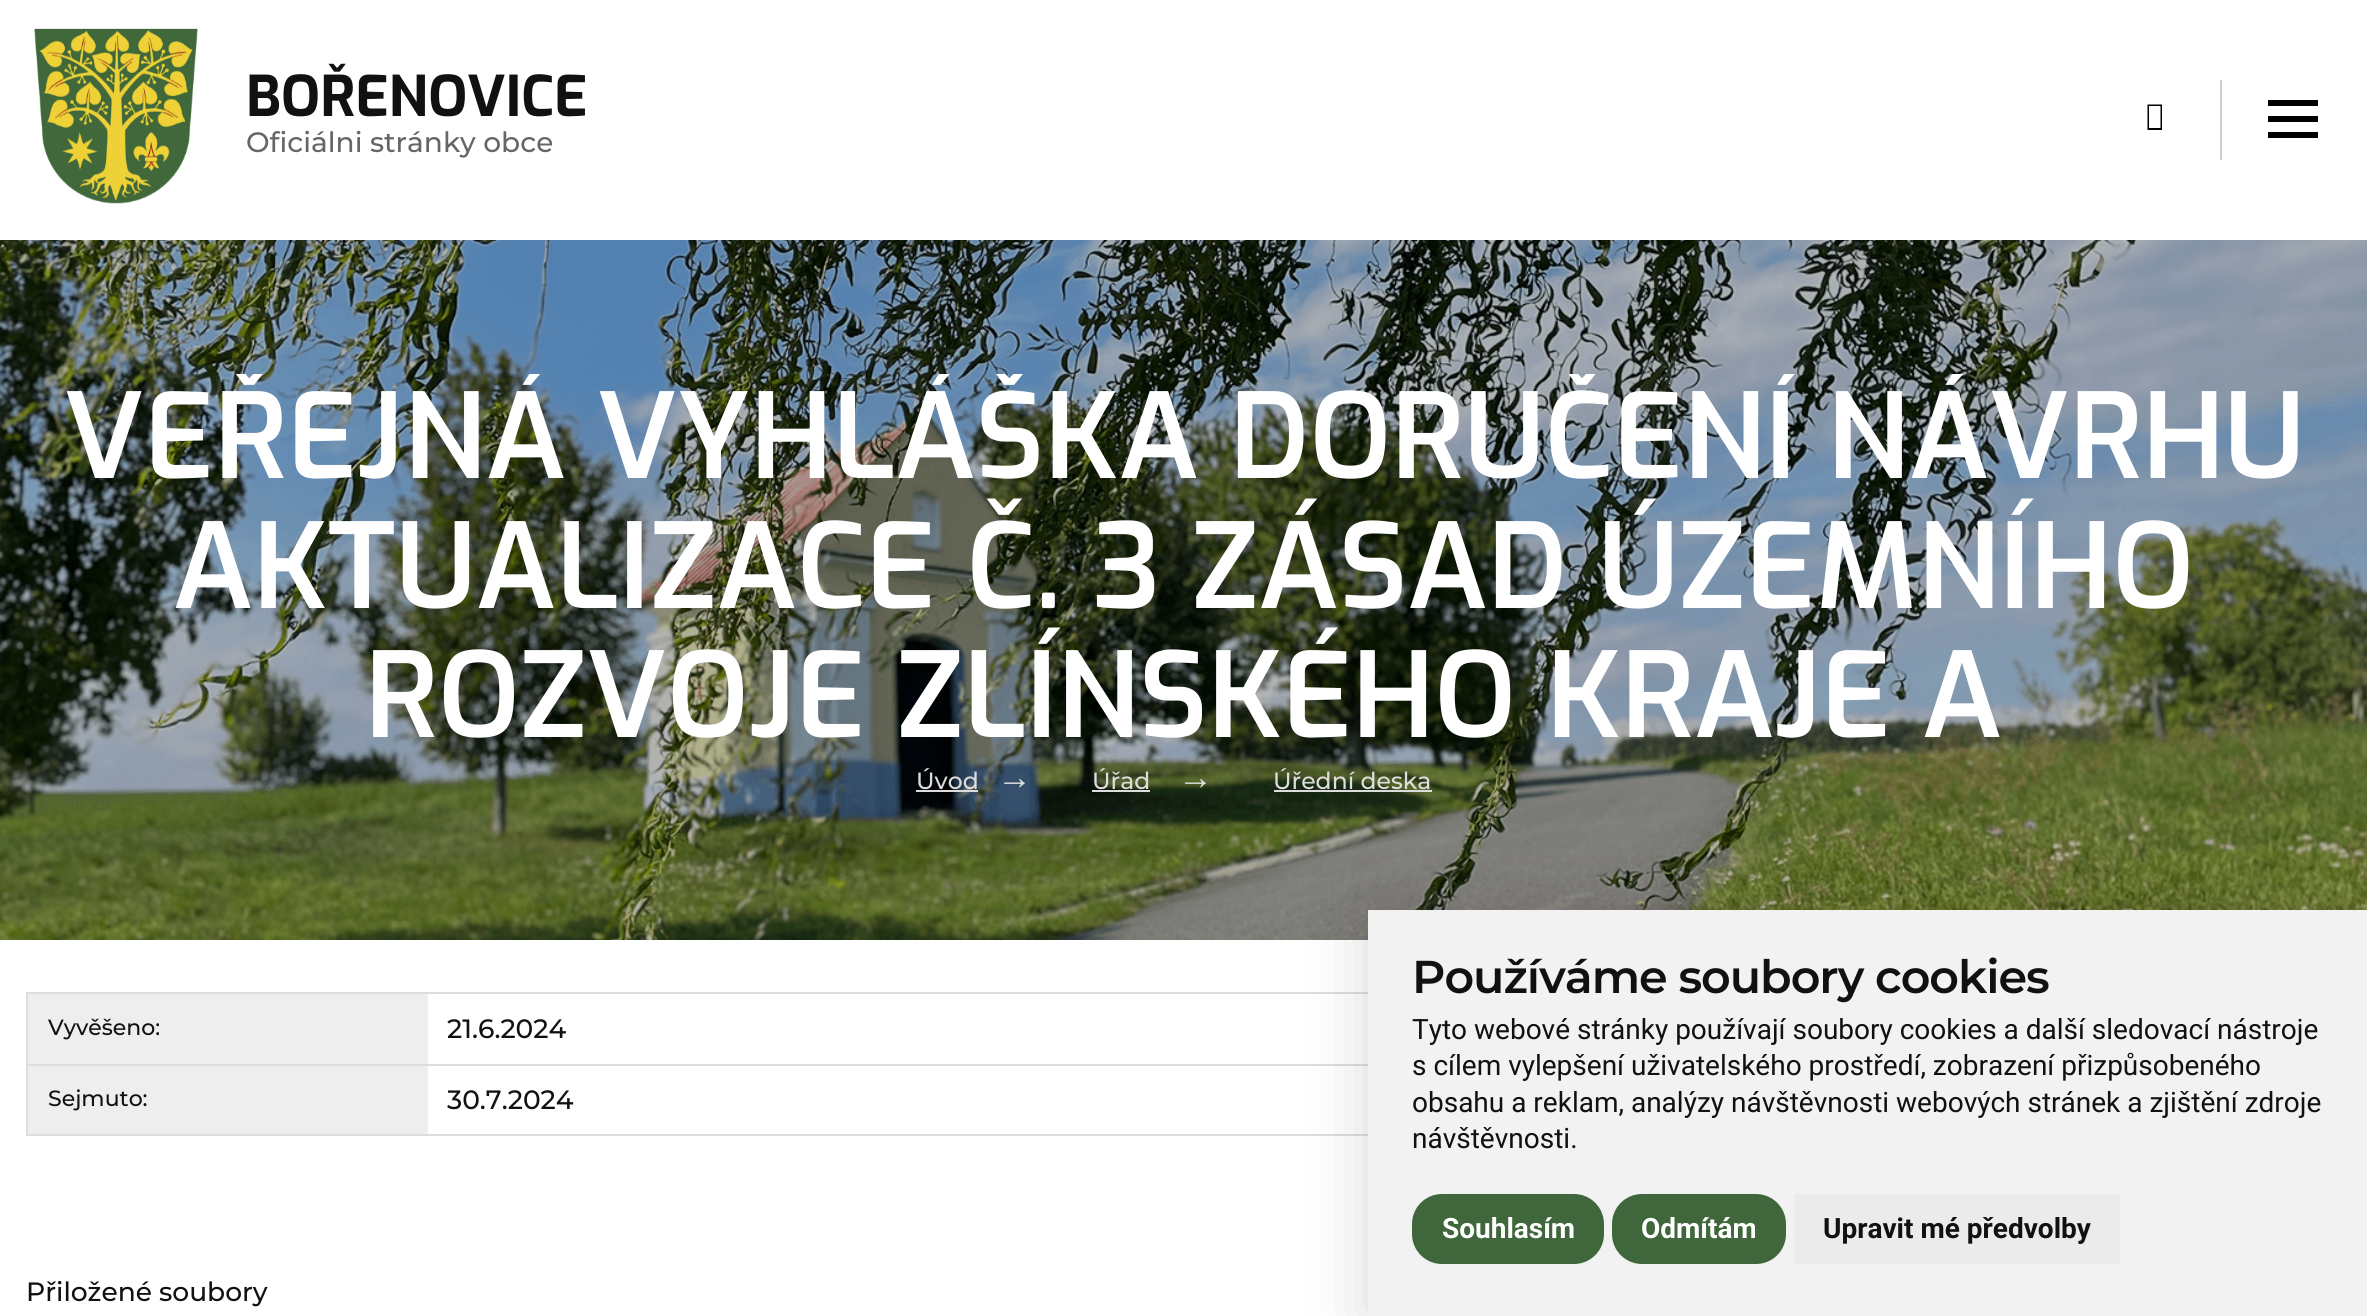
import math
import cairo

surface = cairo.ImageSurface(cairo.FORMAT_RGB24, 2367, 1316)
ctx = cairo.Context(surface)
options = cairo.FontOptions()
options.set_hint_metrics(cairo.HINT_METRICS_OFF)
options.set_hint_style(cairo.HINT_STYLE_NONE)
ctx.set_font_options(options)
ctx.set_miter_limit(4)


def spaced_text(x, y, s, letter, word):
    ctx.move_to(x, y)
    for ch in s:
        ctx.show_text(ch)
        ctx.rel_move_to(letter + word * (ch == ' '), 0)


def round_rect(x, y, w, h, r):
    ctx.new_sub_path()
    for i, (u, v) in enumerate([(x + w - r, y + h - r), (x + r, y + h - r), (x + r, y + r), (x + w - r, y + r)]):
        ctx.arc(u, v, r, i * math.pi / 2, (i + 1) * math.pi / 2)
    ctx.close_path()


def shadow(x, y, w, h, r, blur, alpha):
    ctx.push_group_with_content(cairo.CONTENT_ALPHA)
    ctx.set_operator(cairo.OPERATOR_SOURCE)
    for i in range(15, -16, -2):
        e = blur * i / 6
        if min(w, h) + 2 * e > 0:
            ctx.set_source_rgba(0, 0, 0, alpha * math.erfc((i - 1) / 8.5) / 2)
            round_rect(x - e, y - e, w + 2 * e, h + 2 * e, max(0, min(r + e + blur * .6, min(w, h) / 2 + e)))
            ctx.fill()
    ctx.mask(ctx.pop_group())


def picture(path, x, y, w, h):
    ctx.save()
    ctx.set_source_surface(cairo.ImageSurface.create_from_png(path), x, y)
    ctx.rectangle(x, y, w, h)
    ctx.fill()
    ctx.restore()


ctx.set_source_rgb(1, 1, 1)
ctx.paint()
picture("img1.png", 34, 28, 164, 176)
ctx.select_font_face("Exo", cairo.FONT_SLANT_NORMAL, cairo.FONT_WEIGHT_BOLD)
ctx.set_font_size(56)
ctx.set_source_rgb(0.067, 0.067, 0.067)
ctx.move_to(246, 116)
ctx.show_text("BOŘENOVICE")
ctx.select_font_face("Montserrat Medium")
ctx.set_font_size(28)
ctx.set_source_rgb(0.4, 0.4, 0.4)
ctx.move_to(246, 152)
ctx.show_text("Oficiálni stránky obce")
ctx.set_source_rgb(0.8, 0.8, 0.8)
ctx.rectangle(2220, 80, 2, 80)
ctx.fill()
ctx.set_source_rgb(0, 0, 0)
ctx.new_path()
ctx.move_to(2147.5, 130)
ctx.line_to(2147.5, 104.5)
ctx.line_to(2162, 104.5)
ctx.line_to(2162, 130)
ctx.close_path()
ctx.move_to(2149, 128)
ctx.line_to(2160.5, 128)
ctx.line_to(2160.5, 106)
ctx.line_to(2149, 106)
ctx.close_path()
ctx.fill()
ctx.rectangle(2268, 100, 50, 6)
ctx.fill()
ctx.rectangle(2268, 116, 50, 6)
ctx.fill()
ctx.rectangle(2268, 132, 50, 6)
ctx.fill()
picture("img2.png", 0, 240, 2367, 700)
ctx.save()
ctx.rectangle(26, 374, 2316, 382)
ctx.clip()
ctx.select_font_face("Exo SemiBold")
ctx.set_font_size(117.75)
ctx.set_source_rgb(1, 1, 1)
ctx.move_to(64, 478)
ctx.show_text("VEŘEJNÁ VYHLÁŠKA DORUČENÍ NÁVRHU")
ctx.restore()
ctx.select_font_face("Exo SemiBold")
ctx.set_font_size(117.75)
ctx.set_source_rgb(1, 1, 1)
ctx.move_to(173, 608)
ctx.show_text("AKTUALIZACE Č. 3 ZÁSAD ÚZEMNÍHO")
ctx.move_to(365, 737)
ctx.show_text("ROZVOJE ZLÍNSKÉHO KRAJE A")
ctx.select_font_face("Montserrat Medium")
ctx.set_font_size(23.5)
ctx.set_source_rgb(0.867, 0.867, 0.867)
ctx.move_to(916, 789)
ctx.show_text("Úvod")
ctx.rectangle(916, 790, 62, 2)
ctx.fill()
ctx.select_font_face("Liberation Sans")
ctx.set_font_size(35)
ctx.move_to(997, 789)
ctx.show_text("→")
ctx.select_font_face("Montserrat Medium")
ctx.set_font_size(23.5)
ctx.move_to(1092, 789)
ctx.show_text("Úřad")
ctx.rectangle(1092, 790, 58, 2)
ctx.fill()
ctx.select_font_face("Liberation Sans")
ctx.set_font_size(35)
ctx.move_to(1178, 789)
ctx.show_text("→")
ctx.select_font_face("Montserrat Medium")
ctx.set_font_size(23.5)
ctx.move_to(1273, 789)
ctx.show_text("Úřední deska")
ctx.rectangle(1274, 790, 158, 2)
ctx.fill()
ctx.rectangle(26, 992, 1342, 2)
ctx.fill()
ctx.rectangle(26, 1134, 1342, 2)
ctx.fill()
ctx.rectangle(26, 992, 2, 144)
ctx.fill()
ctx.set_source_rgb(0.933, 0.933, 0.933)
ctx.rectangle(28, 994, 400, 70)
ctx.fill()
ctx.set_font_size(22)
ctx.set_source_rgb(0.067, 0.067, 0.067)
ctx.move_to(48, 1035)
ctx.show_text("Vyvěšeno:")
ctx.set_font_size(26.5)
ctx.move_to(447, 1038)
ctx.show_text("21.6.2024")
ctx.set_source_rgb(0.867, 0.867, 0.867)
ctx.rectangle(26, 1064, 1342, 2)
ctx.fill()
ctx.set_source_rgb(0.933, 0.933, 0.933)
ctx.rectangle(28, 1066, 400, 68)
ctx.fill()
ctx.set_font_size(22)
ctx.set_source_rgb(0.067, 0.067, 0.067)
ctx.move_to(48, 1106)
ctx.show_text("Sejmuto:")
ctx.set_font_size(26.5)
ctx.move_to(447, 1109)
ctx.show_text("30.7.2024")
ctx.move_to(26, 1301)
ctx.show_text("Přiložené soubory")
ctx.set_source_rgb(0.267, 0.176, 0.176)
shadow(1368, 910, 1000, 406, 0, 30, 0.2)
ctx.set_source_rgb(0.949, 0.949, 0.949)
ctx.rectangle(1368, 910, 999, 406)
ctx.fill()
ctx.select_font_face("Montserrat SemiBold")
ctx.set_font_size(46)
ctx.set_source_rgb(0.067, 0.067, 0.067)
spaced_text(1412, 993, "Používáme soubory cookies", -1, 0)
ctx.select_font_face("Roboto")
ctx.set_font_size(28)
ctx.move_to(1412, 1039)
ctx.show_text("Tyto webové stránky používají soubory cookies a další sledovací nástroje")
ctx.move_to(1412, 1075)
ctx.show_text("s cílem vylepšení uživatelského prostředí, zobrazení přizpůsobeného")
ctx.move_to(1412, 1112)
ctx.show_text("obsahu a reklam, analýzy návštěvnosti webových stránek a zjištění zdroje")
ctx.move_to(1412, 1148)
ctx.show_text("návštěvnosti.")
ctx.set_source_rgb(0.251, 0.404, 0.231)
round_rect(1412, 1194, 192, 70, 30)
ctx.fill()
ctx.select_font_face("Roboto", cairo.FONT_SLANT_NORMAL, cairo.FONT_WEIGHT_BOLD)
ctx.set_source_rgb(1, 1, 1)
ctx.move_to(1442, 1238)
ctx.show_text("Souhlasím")
ctx.set_source_rgb(0.251, 0.404, 0.231)
round_rect(1612, 1194, 174, 70, 30)
ctx.fill()
ctx.set_source_rgb(1, 1, 1)
ctx.move_to(1641, 1238)
ctx.show_text("Odmítám")
ctx.set_source_rgb(0.918, 0.918, 0.918)
round_rect(1794, 1194, 326, 70, 4)
ctx.fill()
ctx.set_source_rgb(0.067, 0.067, 0.067)
ctx.move_to(1823, 1238)
ctx.show_text("Upravit mé předvolby")
surface.write_to_png("page.png")
